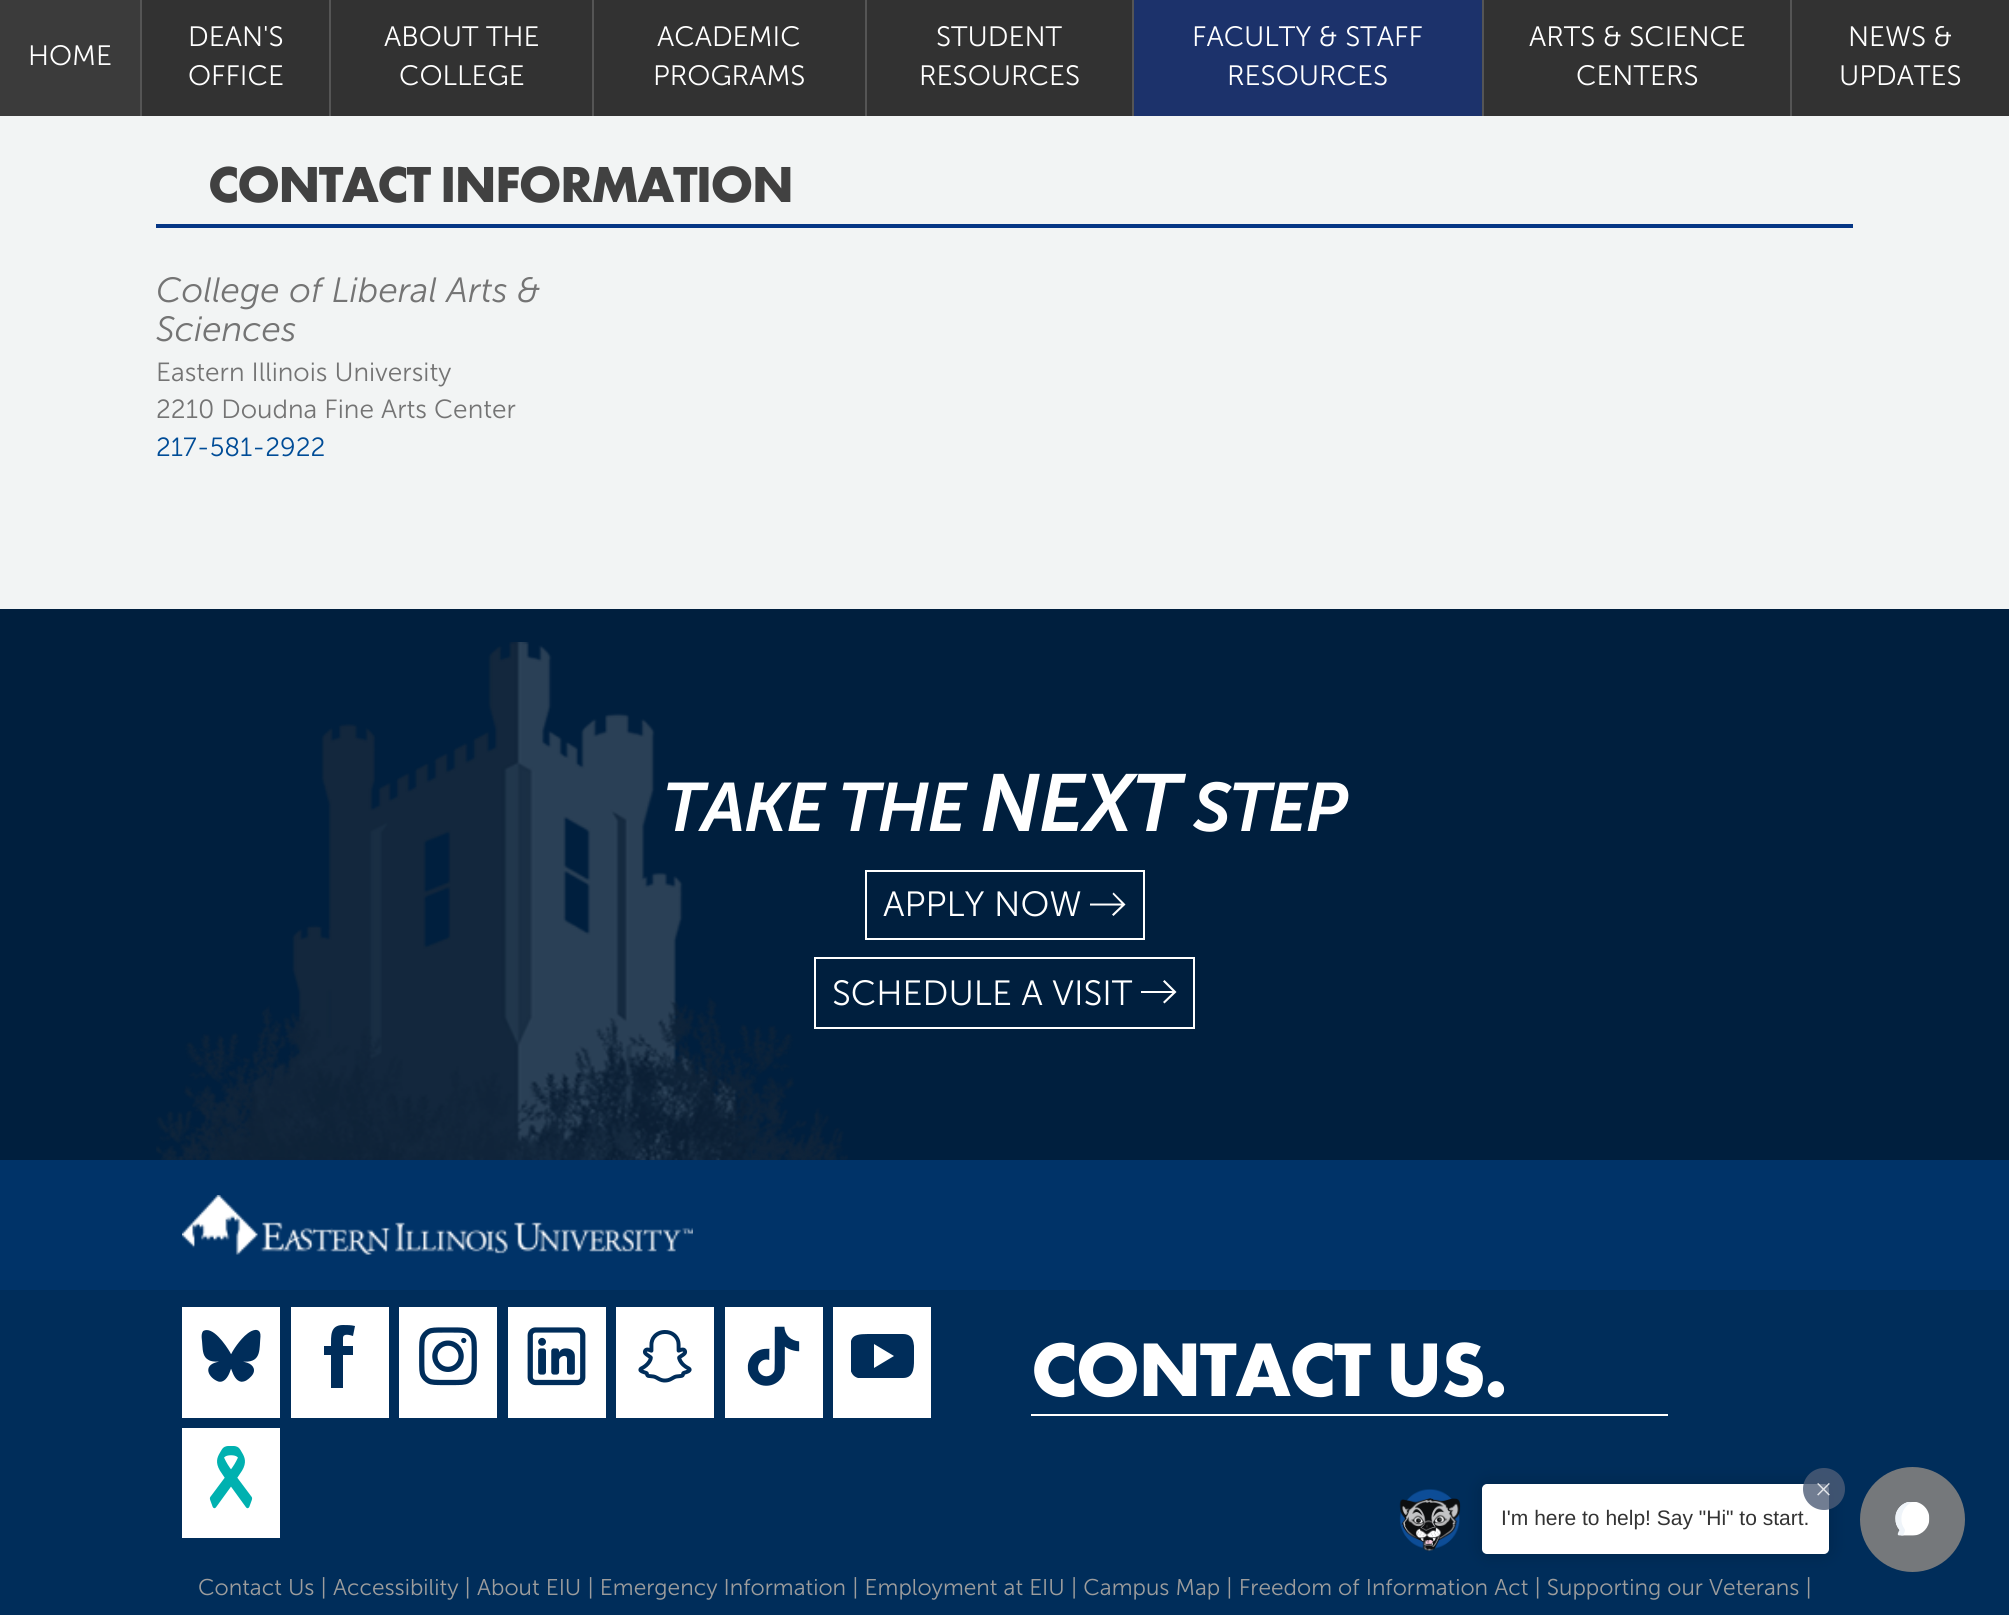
import math
import cairo

surface = cairo.ImageSurface(cairo.FORMAT_RGB24, 2009, 1615)
ctx = cairo.Context(surface)
options = cairo.FontOptions()
options.set_hint_metrics(cairo.HINT_METRICS_OFF)
options.set_hint_style(cairo.HINT_STYLE_NONE)
ctx.set_font_options(options)
ctx.set_miter_limit(4)


def spaced_text(x, y, s, letter, word):
    ctx.move_to(x, y)
    for ch in s:
        ctx.show_text(ch)
        ctx.rel_move_to(letter + word * (ch == ' '), 0)


def round_rect(x, y, w, h, r):
    ctx.new_sub_path()
    for i, (u, v) in enumerate([(x + w - r, y + h - r), (x + r, y + h - r), (x + r, y + r), (x + w - r, y + r)]):
        ctx.arc(u, v, r, i * math.pi / 2, (i + 1) * math.pi / 2)
    ctx.close_path()


def shadow(x, y, w, h, r, blur, alpha):
    ctx.push_group_with_content(cairo.CONTENT_ALPHA)
    ctx.set_operator(cairo.OPERATOR_SOURCE)
    for i in range(15, -16, -2):
        e = blur * i / 6
        if min(w, h) + 2 * e > 0:
            ctx.set_source_rgba(0, 0, 0, alpha * math.erfc((i - 1) / 8.5) / 2)
            round_rect(x - e, y - e, w + 2 * e, h + 2 * e, max(0, min(r + e + blur * .6, min(w, h) / 2 + e)))
            ctx.fill()
    ctx.mask(ctx.pop_group())


def picture(path, x, y, w, h):
    ctx.save()
    ctx.set_source_surface(cairo.ImageSurface.create_from_png(path), x, y)
    ctx.rectangle(x, y, w, h)
    ctx.fill()
    ctx.restore()


ctx.set_source_rgb(0.949, 0.957, 0.957)
ctx.paint()
ctx.set_source_rgb(0.231, 0.231, 0.231)
ctx.rectangle(0, 0, 140, 116)
ctx.fill()
ctx.select_font_face("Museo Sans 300 Light")
ctx.set_font_size(28)
ctx.set_source_rgb(1, 1, 1)
ctx.move_to(28, 65)
ctx.show_text("HOME")
ctx.set_source_rgb(0.196, 0.196, 0.196)
ctx.rectangle(142, 0, 187, 116)
ctx.fill()
ctx.set_source_rgb(0.333, 0.333, 0.333)
ctx.rectangle(140, 0, 2, 116)
ctx.fill()
ctx.set_source_rgb(1, 1, 1)
ctx.move_to(188, 46)
ctx.show_text("DEAN'S")
ctx.move_to(188, 85)
ctx.show_text("OFFICE")
ctx.set_source_rgb(0.196, 0.196, 0.196)
ctx.rectangle(331, 0, 261, 116)
ctx.fill()
ctx.set_source_rgb(0.333, 0.333, 0.333)
ctx.rectangle(329, 0, 2, 116)
ctx.fill()
ctx.set_source_rgb(1, 1, 1)
ctx.move_to(384, 46)
ctx.show_text("ABOUT THE")
ctx.move_to(399, 85)
ctx.show_text("COLLEGE")
ctx.set_source_rgb(0.196, 0.196, 0.196)
ctx.rectangle(594, 0, 271, 116)
ctx.fill()
ctx.set_source_rgb(0.333, 0.333, 0.333)
ctx.rectangle(592, 0, 2, 116)
ctx.fill()
ctx.set_source_rgb(1, 1, 1)
ctx.move_to(657, 46)
ctx.show_text("ACADEMIC")
ctx.move_to(653, 85)
ctx.show_text("PROGRAMS")
ctx.set_source_rgb(0.196, 0.196, 0.196)
ctx.rectangle(867, 0, 265, 116)
ctx.fill()
ctx.set_source_rgb(0.333, 0.333, 0.333)
ctx.rectangle(865, 0, 2, 116)
ctx.fill()
ctx.set_source_rgb(1, 1, 1)
ctx.move_to(936, 46)
ctx.show_text("STUDENT")
ctx.move_to(919, 85)
ctx.show_text("RESOURCES")
ctx.set_source_rgb(0.11, 0.196, 0.42)
ctx.rectangle(1134, 0, 348, 116)
ctx.fill()
ctx.set_source_rgb(0.333, 0.333, 0.333)
ctx.rectangle(1132, 0, 2, 116)
ctx.fill()
ctx.set_source_rgb(1, 1, 1)
ctx.move_to(1192, 46)
ctx.show_text("FACULTY & STAFF")
ctx.move_to(1227, 85)
ctx.show_text("RESOURCES")
ctx.set_source_rgb(0.196, 0.196, 0.196)
ctx.rectangle(1484, 0, 306, 116)
ctx.fill()
ctx.set_source_rgb(0.333, 0.333, 0.333)
ctx.rectangle(1482, 0, 2, 116)
ctx.fill()
ctx.set_source_rgb(1, 1, 1)
ctx.move_to(1529, 46)
ctx.show_text("ARTS & SCIENCE")
ctx.move_to(1576, 85)
ctx.show_text("CENTERS")
ctx.set_source_rgb(0.196, 0.196, 0.196)
ctx.rectangle(1792, 0, 217, 116)
ctx.fill()
ctx.set_source_rgb(0.333, 0.333, 0.333)
ctx.rectangle(1790, 0, 2, 116)
ctx.fill()
ctx.set_source_rgb(1, 1, 1)
ctx.move_to(1848, 46)
ctx.show_text("NEWS &")
ctx.move_to(1839, 85)
ctx.show_text("UPDATES")
ctx.set_source_rgb(0.02, 0.212, 0.522)
ctx.rectangle(156, 224, 1697, 4)
ctx.fill()
ctx.select_font_face("Futura PT", cairo.FONT_SLANT_NORMAL, cairo.FONT_WEIGHT_BOLD)
ctx.set_font_size(52.5)
ctx.set_source_rgb(0.255, 0.255, 0.255)
spaced_text(208, 202, "CONTACT INFORMATION", -1.75, 0)
ctx.select_font_face("Museo Sans 300 Light", cairo.FONT_SLANT_ITALIC)
ctx.set_font_size(35)
ctx.set_source_rgb(0.455, 0.455, 0.455)
ctx.move_to(156, 302)
ctx.show_text("College of Liberal Arts &")
ctx.move_to(156, 341)
ctx.show_text("Sciences")
ctx.select_font_face("Museo Sans 300 Light")
ctx.set_font_size(26.25)
ctx.move_to(156, 381)
ctx.show_text("Eastern Illinois University")
ctx.move_to(156, 418)
ctx.show_text("2210 Doudna Fine Arts Center")
ctx.set_source_rgb(0, 0.298, 0.592)
ctx.move_to(156, 456)
ctx.show_text("217-581-2922")
ctx.set_source_rgb(0, 0.122, 0.243)
ctx.rectangle(0, 609, 2009, 551)
ctx.fill()
picture("img1.png", 156, 642, 692, 518)
ctx.select_font_face("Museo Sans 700 SemiBold", cairo.FONT_SLANT_ITALIC)
ctx.set_font_size(68.25)
ctx.set_source_rgb(1, 1, 1)
spaced_text(663, 831, "TAKE THE", -1.75, 0)
ctx.set_font_size(80.5)
spaced_text(980, 831, "NEXT", -1.75, 0)
ctx.set_font_size(68.25)
spaced_text(1193, 831, "STEP", -1.75, 0)
ctx.rectangle(866, 871, 278, 68)
ctx.stroke()
ctx.select_font_face("Museo Sans 300 Light")
ctx.set_font_size(35)
ctx.move_to(883, 916)
ctx.show_text("APPLY NOW")
ctx.new_path()
ctx.move_to(1090, 903.5)
ctx.line_to(1090, 905.5)
ctx.line_to(1124.5, 905.5)
ctx.line_to(1124.5, 903.5)
ctx.close_path()
ctx.move_to(1113.5, 892.5)
ctx.line_to(1112.5, 894)
ctx.line_to(1124, 906)
ctx.line_to(1125.5, 904.5)
ctx.close_path()
ctx.move_to(1125.5, 904.5)
ctx.line_to(1124, 903)
ctx.line_to(1112, 914.5)
ctx.line_to(1113.5, 916)
ctx.close_path()
ctx.fill()
ctx.rectangle(815, 958, 379, 70)
ctx.stroke()
ctx.move_to(832, 1005)
ctx.show_text("SCHEDULE A VISIT")
ctx.new_path()
ctx.move_to(1141, 991)
ctx.line_to(1141, 993)
ctx.line_to(1175, 993)
ctx.line_to(1175, 991)
ctx.close_path()
ctx.move_to(1164.5, 980)
ctx.line_to(1163, 981.5)
ctx.line_to(1175, 993.5)
ctx.line_to(1176.5, 992)
ctx.close_path()
ctx.move_to(1176.5, 992)
ctx.line_to(1175, 990.5)
ctx.line_to(1163, 1002)
ctx.line_to(1164.5, 1003.5)
ctx.close_path()
ctx.fill()
ctx.set_source_rgb(0, 0.2, 0.408)
ctx.rectangle(0, 1160, 2009, 130)
ctx.fill()
picture("img2.png", 182, 1195, 511, 60)
ctx.set_source_rgb(0, 0.176, 0.353)
ctx.rectangle(0, 1290, 2009, 325)
ctx.fill()
ctx.set_source_rgb(1, 1, 1)
ctx.rectangle(182, 1307, 98, 111)
ctx.fill()
picture("img3.png", 201, 1329, 60, 53)
ctx.rectangle(291, 1307, 98, 111)
ctx.fill()
ctx.set_source_rgb(0, 0.176, 0.353)
ctx.new_path()
ctx.move_to(343, 1338)
ctx.curve_to(343, 1333, 350, 1335, 353, 1336)
ctx.line_to(355, 1326)
ctx.curve_to(351, 1325, 347, 1325, 343, 1325)
ctx.curve_to(330, 1325, 331, 1336, 331, 1346)
ctx.line_to(324, 1346)
ctx.line_to(324, 1355)
ctx.line_to(331, 1355)
ctx.line_to(331, 1388)
ctx.line_to(343, 1388)
ctx.line_to(343, 1355)
ctx.line_to(353, 1355)
ctx.line_to(353, 1346)
ctx.line_to(343, 1346)
ctx.close_path()
ctx.fill()
ctx.set_source_rgb(1, 1, 1)
ctx.rectangle(399, 1307, 98, 111)
ctx.fill()
picture("img4.png", 419, 1327, 58, 59)
ctx.rectangle(508, 1307, 98, 111)
ctx.fill()
picture("img5.png", 527, 1327, 59, 59)
ctx.rectangle(616, 1307, 98, 111)
ctx.fill()
picture("img6.png", 638, 1330, 54, 53)
ctx.rectangle(725, 1307, 98, 111)
ctx.fill()
picture("img7.png", 747, 1326, 53, 60)
ctx.rectangle(833, 1307, 98, 111)
ctx.fill()
ctx.save()
ctx.rectangle(851, 1325, 63, 63)
ctx.clip()
ctx.set_source_rgb(0, 0.176, 0.353)
ctx.new_path()
ctx.move_to(903, 1334)
ctx.line_to(868, 1334)
ctx.curve_to(850, 1334, 850, 1338, 850, 1356)
ctx.curve_to(850, 1363, 848, 1375, 858, 1378)
ctx.line_to(868, 1378)
ctx.line_to(903, 1378)
ctx.curve_to(915, 1378, 914, 1365, 914, 1356)
ctx.curve_to(914, 1348, 916, 1334, 903, 1334)
ctx.close_path()
ctx.move_to(874, 1368)
ctx.line_to(874, 1344)
ctx.line_to(894, 1356)
ctx.close_path()
ctx.fill()
ctx.restore()
ctx.rectangle(182, 1428, 98, 110)
ctx.fill()
picture("img8.png", 209, 1446, 44, 63)
ctx.rectangle(1031, 1414, 637, 2)
ctx.fill()
ctx.select_font_face("Futura PT", cairo.FONT_SLANT_NORMAL, cairo.FONT_WEIGHT_BOLD)
ctx.set_font_size(78.75)
spaced_text(1031, 1396, "CONTACT US.", -1.75, 0)
ctx.select_font_face("Museo Sans 300 Light")
ctx.set_font_size(22.75)
ctx.set_source_rgb(0.616, 0.616, 0.616)
ctx.move_to(198, 1595)
ctx.show_text("Contact Us | Accessibility | About EIU | Emergency Information | Employment at EIU | Campus Map | Freedom of Information Act | Supporting our Veterans |")
picture("img9.png", 1399, 1489, 62, 63)
ctx.set_source_rgb(0, 0, 0)
shadow(1482, 1484, 347, 70, 5, 9, 0.2)
ctx.set_source_rgb(1, 1, 1)
round_rect(1483, 1485, 345, 68, 4)
ctx.fill_preserve()
ctx.stroke()
ctx.select_font_face("Liberation Sans")
ctx.set_font_size(21)
ctx.set_source_rgb(0.2, 0.2, 0.2)
ctx.move_to(1501, 1525)
ctx.show_text("I'm here to help! Say \"Hi\" to start.")
ctx.set_source_rgba(0.306, 0.365, 0.467, 0.8)
ctx.new_path()
ctx.arc(1824, 1489, 21, 0, 2 * math.pi)
ctx.fill()
picture("img10.png", 1817, 1483, 13, 13)
ctx.set_source_rgb(0.459, 0.471, 0.482)
ctx.arc(1912.5, 1519.5, 52.5, 0, 2 * math.pi)
ctx.fill()
picture("img11.png", 1895, 1502, 35, 34)
surface.write_to_png("page.png")
